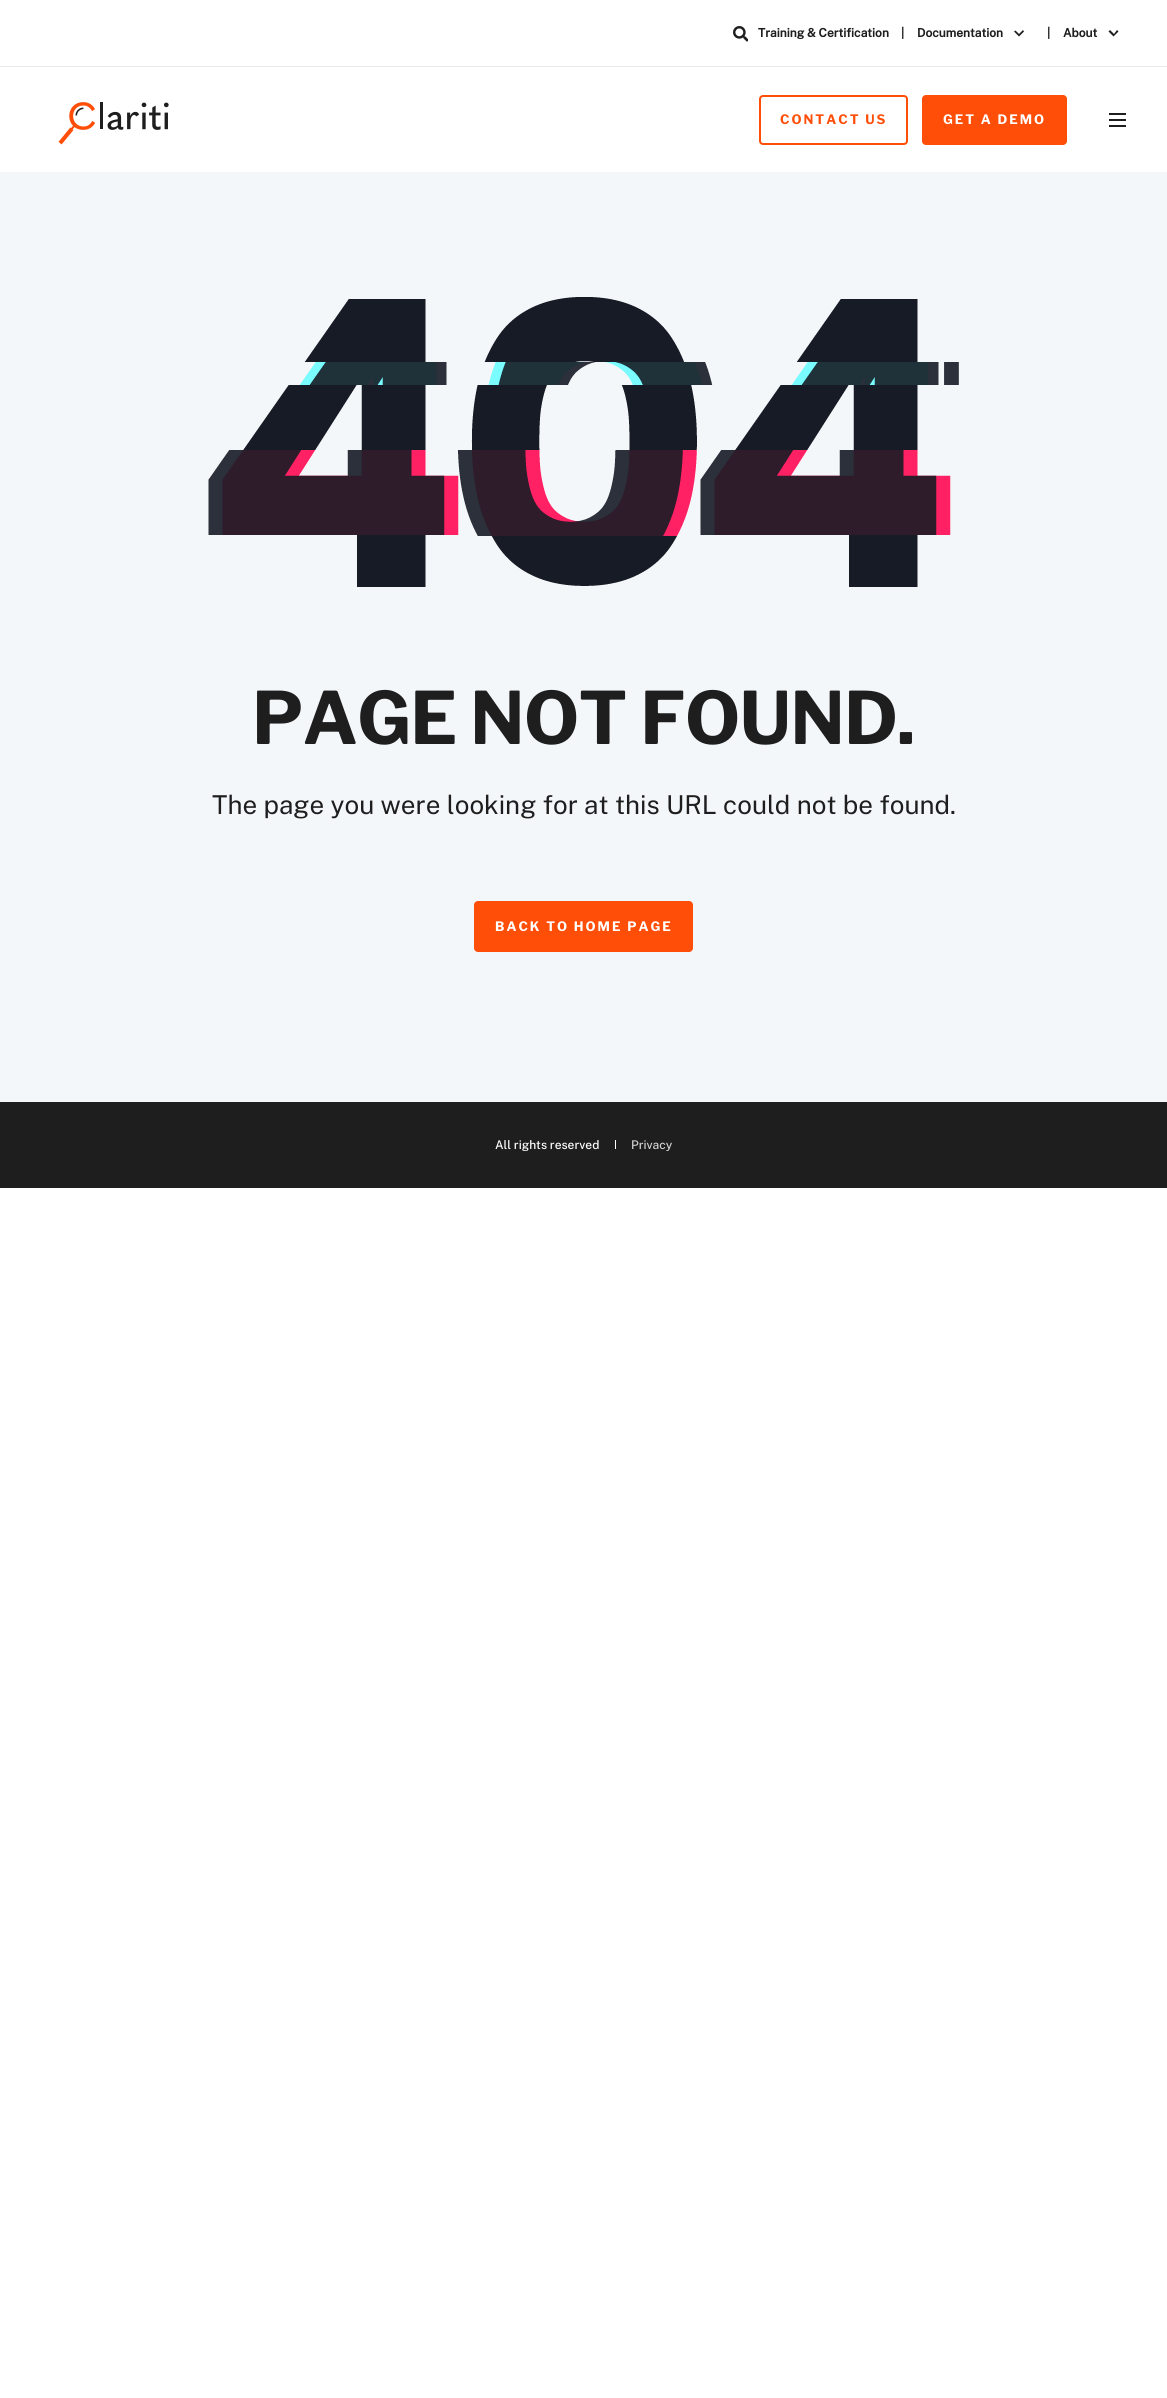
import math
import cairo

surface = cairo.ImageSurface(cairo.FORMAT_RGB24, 1167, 2398)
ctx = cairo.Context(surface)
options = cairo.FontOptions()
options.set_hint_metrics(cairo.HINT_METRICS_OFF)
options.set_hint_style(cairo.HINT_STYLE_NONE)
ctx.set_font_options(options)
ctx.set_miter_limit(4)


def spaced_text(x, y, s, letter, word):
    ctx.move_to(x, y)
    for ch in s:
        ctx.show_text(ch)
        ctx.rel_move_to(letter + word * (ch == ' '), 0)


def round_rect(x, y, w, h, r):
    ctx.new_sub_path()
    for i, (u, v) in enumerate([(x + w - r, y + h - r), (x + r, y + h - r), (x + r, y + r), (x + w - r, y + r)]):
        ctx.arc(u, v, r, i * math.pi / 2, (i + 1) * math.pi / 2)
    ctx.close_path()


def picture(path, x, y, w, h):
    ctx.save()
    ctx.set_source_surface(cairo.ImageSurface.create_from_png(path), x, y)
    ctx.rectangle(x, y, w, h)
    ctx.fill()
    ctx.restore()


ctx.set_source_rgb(1, 1, 1)
ctx.paint()
ctx.set_source_rgb(0.914, 0.914, 0.914)
ctx.rectangle(0, 66, 1167, 1)
ctx.fill()
picture("img1.png", 733, 26, 15, 16)
ctx.select_font_face("Public Sans", cairo.FONT_SLANT_NORMAL, cairo.FONT_WEIGHT_BOLD)
ctx.set_font_size(12)
ctx.set_source_rgb(0.118, 0.118, 0.118)
ctx.move_to(758, 37)
ctx.show_text("Training & Certification")
ctx.move_to(901, 37)
ctx.show_text("|")
ctx.move_to(917, 37)
ctx.show_text("Documentation")
ctx.new_path()
ctx.move_to(1024, 31.5)
ctx.line_to(1023, 30)
ctx.line_to(1019, 34)
ctx.line_to(1015.5, 30.5)
ctx.line_to(1014, 31.5)
ctx.line_to(1019, 36.5)
ctx.close_path()
ctx.fill()
ctx.move_to(1047, 37)
ctx.show_text("|")
ctx.move_to(1063, 37)
ctx.show_text("About")
ctx.new_path()
ctx.move_to(1118.5, 31.5)
ctx.line_to(1117, 30)
ctx.line_to(1114, 34)
ctx.line_to(1110, 30)
ctx.line_to(1108.5, 31.5)
ctx.line_to(1113.5, 36.5)
ctx.close_path()
ctx.fill()
picture("img2.png", 58, 102, 111, 43)
round_rect(760, 96, 147, 48, 3)
ctx.set_source_rgb(1, 0.306, 0.031)
ctx.stroke()
ctx.select_font_face("Libre Franklin", cairo.FONT_SLANT_NORMAL, cairo.FONT_WEIGHT_BOLD)
ctx.set_font_size(13)
spaced_text(780, 124, "CONTACT US", 2, 0)
round_rect(922, 95, 145, 50, 4)
ctx.fill()
ctx.set_source_rgb(1, 1, 1)
spaced_text(943, 124, "GET A DEMO", 2, 0)
ctx.set_source_rgb(0.118, 0.118, 0.118)
ctx.rectangle(1109, 113, 17, 2)
ctx.fill()
ctx.rectangle(1109, 119, 17, 2)
ctx.fill()
ctx.rectangle(1109, 125, 17, 2)
ctx.fill()
ctx.set_source_rgb(0.957, 0.965, 0.98)
ctx.rectangle(0, 172, 1167, 930)
ctx.fill()
picture("img3.png", 208, 297, 751, 290)
ctx.set_font_size(72)
ctx.set_source_rgb(0.118, 0.118, 0.118)
spaced_text(252, 744, "PAGE NOT FOUND.", -1, 0)
ctx.select_font_face("Public Sans")
ctx.set_font_size(26)
ctx.move_to(212, 814)
ctx.show_text("The page you were looking for at this URL could not be found.")
ctx.set_source_rgb(1, 0.306, 0.031)
round_rect(474, 901, 219, 51, 4)
ctx.fill()
ctx.select_font_face("Libre Franklin", cairo.FONT_SLANT_NORMAL, cairo.FONT_WEIGHT_BOLD)
ctx.set_font_size(13)
ctx.set_source_rgb(1, 1, 1)
spaced_text(495, 931, "BACK TO HOME PAGE", 2, 0)
ctx.set_source_rgb(0.118, 0.118, 0.118)
ctx.rectangle(0, 1102, 1167, 86)
ctx.fill()
ctx.select_font_face("Public Sans Medium")
ctx.set_font_size(12)
ctx.set_source_rgb(1, 1, 1)
ctx.move_to(495, 1149)
ctx.show_text("All rights reserved")
ctx.rectangle(615, 1140, 1, 9)
ctx.fill()
ctx.set_source_rgb(0.824, 0.824, 0.824)
ctx.move_to(631, 1149)
ctx.show_text("Privacy")
surface.write_to_png("page.png")
